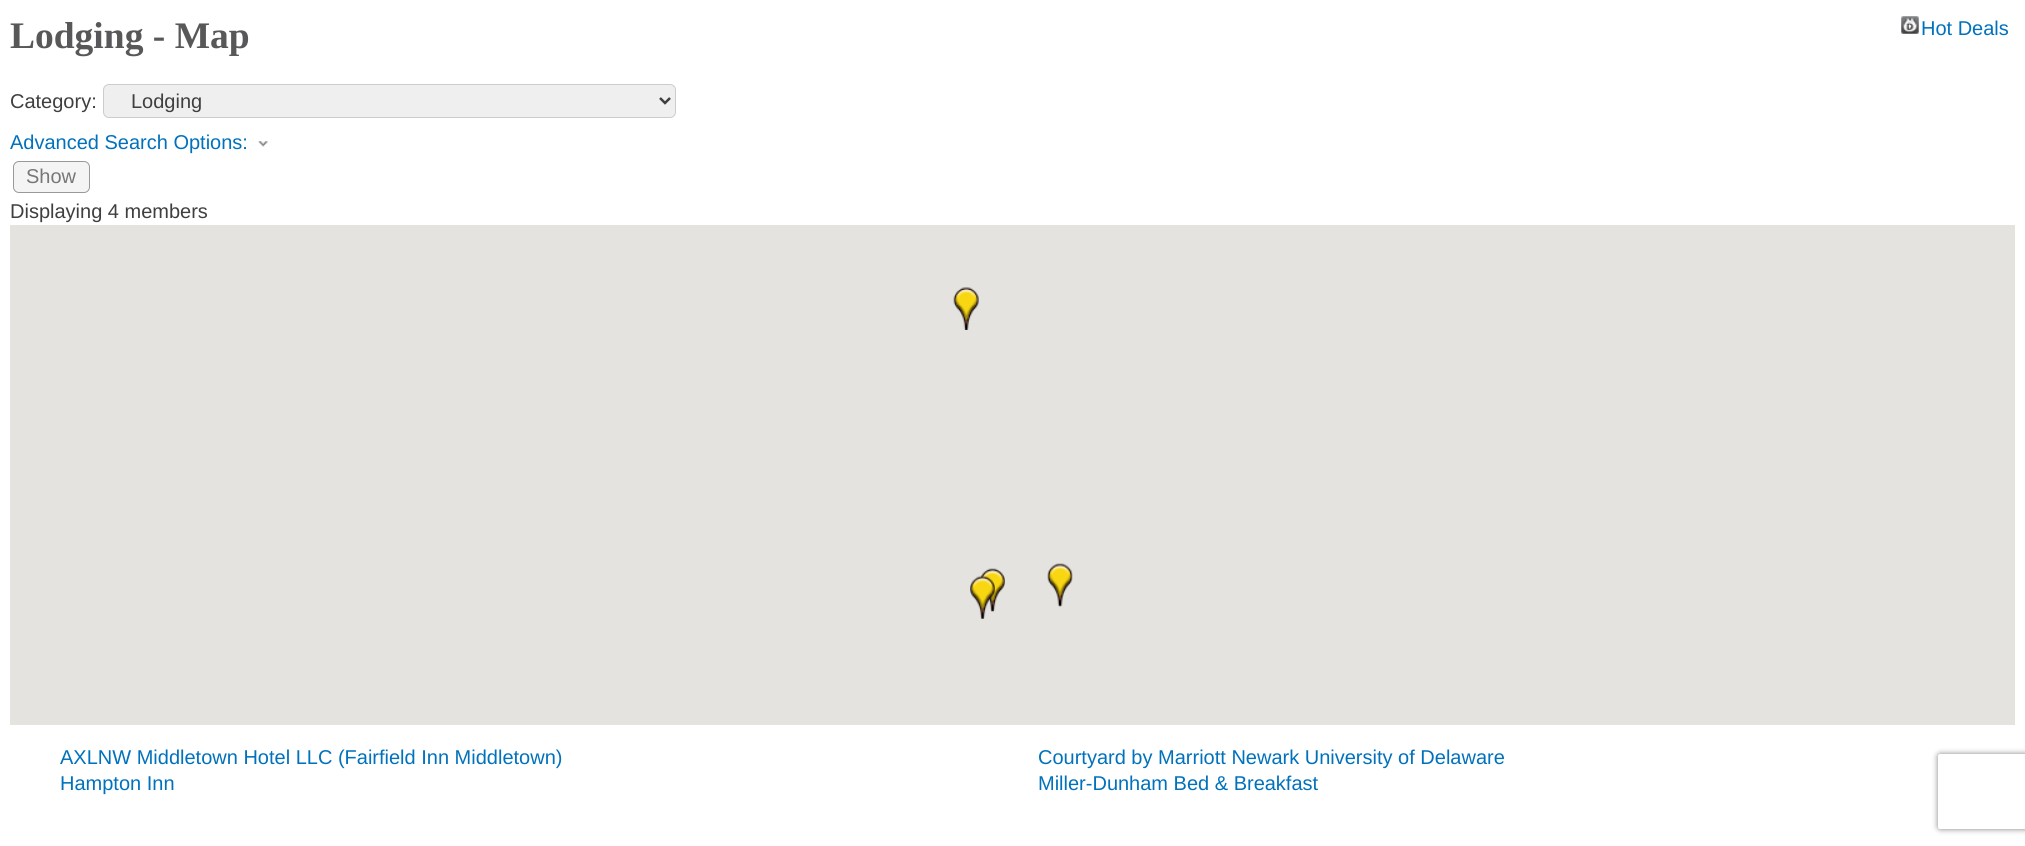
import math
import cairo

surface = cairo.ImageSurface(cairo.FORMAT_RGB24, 2025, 846)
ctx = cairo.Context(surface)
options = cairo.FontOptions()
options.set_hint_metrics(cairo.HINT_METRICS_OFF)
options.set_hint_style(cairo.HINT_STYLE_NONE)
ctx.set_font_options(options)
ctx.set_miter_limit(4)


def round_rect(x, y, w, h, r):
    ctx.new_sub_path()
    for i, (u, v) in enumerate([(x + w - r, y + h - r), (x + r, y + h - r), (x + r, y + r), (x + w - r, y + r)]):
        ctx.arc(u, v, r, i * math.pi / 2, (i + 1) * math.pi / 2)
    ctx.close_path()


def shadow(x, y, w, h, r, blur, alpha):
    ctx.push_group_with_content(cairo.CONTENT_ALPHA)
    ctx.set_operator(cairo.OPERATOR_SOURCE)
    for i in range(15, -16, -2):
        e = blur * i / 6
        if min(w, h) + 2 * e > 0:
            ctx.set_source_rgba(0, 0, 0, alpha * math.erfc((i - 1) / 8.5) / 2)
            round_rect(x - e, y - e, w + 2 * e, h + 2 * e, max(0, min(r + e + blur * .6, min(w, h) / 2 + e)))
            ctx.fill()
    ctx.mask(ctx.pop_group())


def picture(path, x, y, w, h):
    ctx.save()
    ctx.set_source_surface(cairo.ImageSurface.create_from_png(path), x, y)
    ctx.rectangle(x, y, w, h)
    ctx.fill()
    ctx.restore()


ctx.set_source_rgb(1, 1, 1)
ctx.paint()
ctx.select_font_face("Liberation Serif", cairo.FONT_SLANT_NORMAL, cairo.FONT_WEIGHT_BOLD)
ctx.set_font_size(37.5)
ctx.set_source_rgb(0.345, 0.345, 0.353)
ctx.move_to(10, 48)
ctx.show_text("Lodging - Map")
picture("img1.png", 1901, 16, 18, 18)
ctx.select_font_face("Liberation Sans")
ctx.set_font_size(20)
ctx.set_source_rgb(0, 0.443, 0.737)
ctx.move_to(1921, 35)
ctx.show_text("Hot Deals")
ctx.set_source_rgb(0.247, 0.247, 0.247)
ctx.move_to(10, 108)
ctx.show_text("Category:")
ctx.set_source_rgb(0.937, 0.937, 0.937)
round_rect(103.5, 84.5, 572, 33, 5.5)
ctx.fill_preserve()
ctx.set_source_rgb(0.8, 0.8, 0.8)
ctx.set_line_width(1)
ctx.stroke()
ctx.new_path()
ctx.move_to(660, 98)
ctx.line_to(665, 103)
ctx.line_to(670, 98)
ctx.set_source_rgb(0.247, 0.247, 0.247)
ctx.set_line_width(2.5)
ctx.stroke()
ctx.move_to(131, 108)
ctx.show_text("Lodging")
ctx.set_source_rgb(0, 0.443, 0.737)
ctx.move_to(10, 149)
ctx.show_text("Advanced Search Options:")
picture("img2.png", 258, 141, 10, 6)
ctx.set_source_rgb(0.957, 0.957, 0.957)
round_rect(13.5, 161.5, 76, 31, 5.5)
ctx.fill_preserve()
ctx.set_source_rgb(0.6, 0.6, 0.6)
ctx.set_line_width(1)
ctx.stroke()
ctx.set_source_rgb(0.467, 0.467, 0.467)
ctx.move_to(26, 183)
ctx.show_text("Show")
ctx.set_source_rgb(0.247, 0.247, 0.247)
ctx.move_to(10, 218)
ctx.show_text("Displaying 4 members")
ctx.set_source_rgb(0.898, 0.89, 0.875)
ctx.rectangle(10, 225, 2005, 500)
ctx.fill()
picture("img3.png", 953, 287, 26, 43)
picture("img4.png", 980, 568, 25, 44)
picture("img5.png", 1047, 563, 26, 44)
picture("img6.png", 970, 575, 25, 44)
ctx.set_source_rgb(0, 0.443, 0.737)
ctx.move_to(60, 764)
ctx.show_text("AXLNW Middletown Hotel LLC (Fairfield Inn Middletown)")
ctx.move_to(1038, 764)
ctx.show_text("Courtyard by Marriott Newark University of Delaware")
ctx.move_to(60, 790)
ctx.show_text("Hampton Inn")
ctx.move_to(1038, 790)
ctx.show_text("Miller-Dunham Bed & Breakfast")
ctx.save()
ctx.set_fill_rule(cairo.FILL_RULE_EVEN_ODD)
ctx.new_path()
ctx.move_to(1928, 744)
ctx.line_to(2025, 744)
ctx.line_to(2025, 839)
ctx.line_to(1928, 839)
ctx.close_path()
ctx.move_to(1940.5, 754)
ctx.line_to(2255.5, 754)
ctx.curve_to(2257, 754, 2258, 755, 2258, 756.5)
ctx.line_to(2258, 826.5)
ctx.curve_to(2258, 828, 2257, 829, 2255.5, 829)
ctx.line_to(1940.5, 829)
ctx.curve_to(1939, 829, 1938, 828, 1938, 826.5)
ctx.line_to(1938, 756.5)
ctx.curve_to(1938, 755, 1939, 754, 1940.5, 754)
ctx.close_path()
ctx.clip()
ctx.set_source_rgb(0.502, 0.502, 0.502)
shadow(1938, 754, 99, 75, 2.5, 3, 1)
ctx.restore()
surface.write_to_png("page.png")
